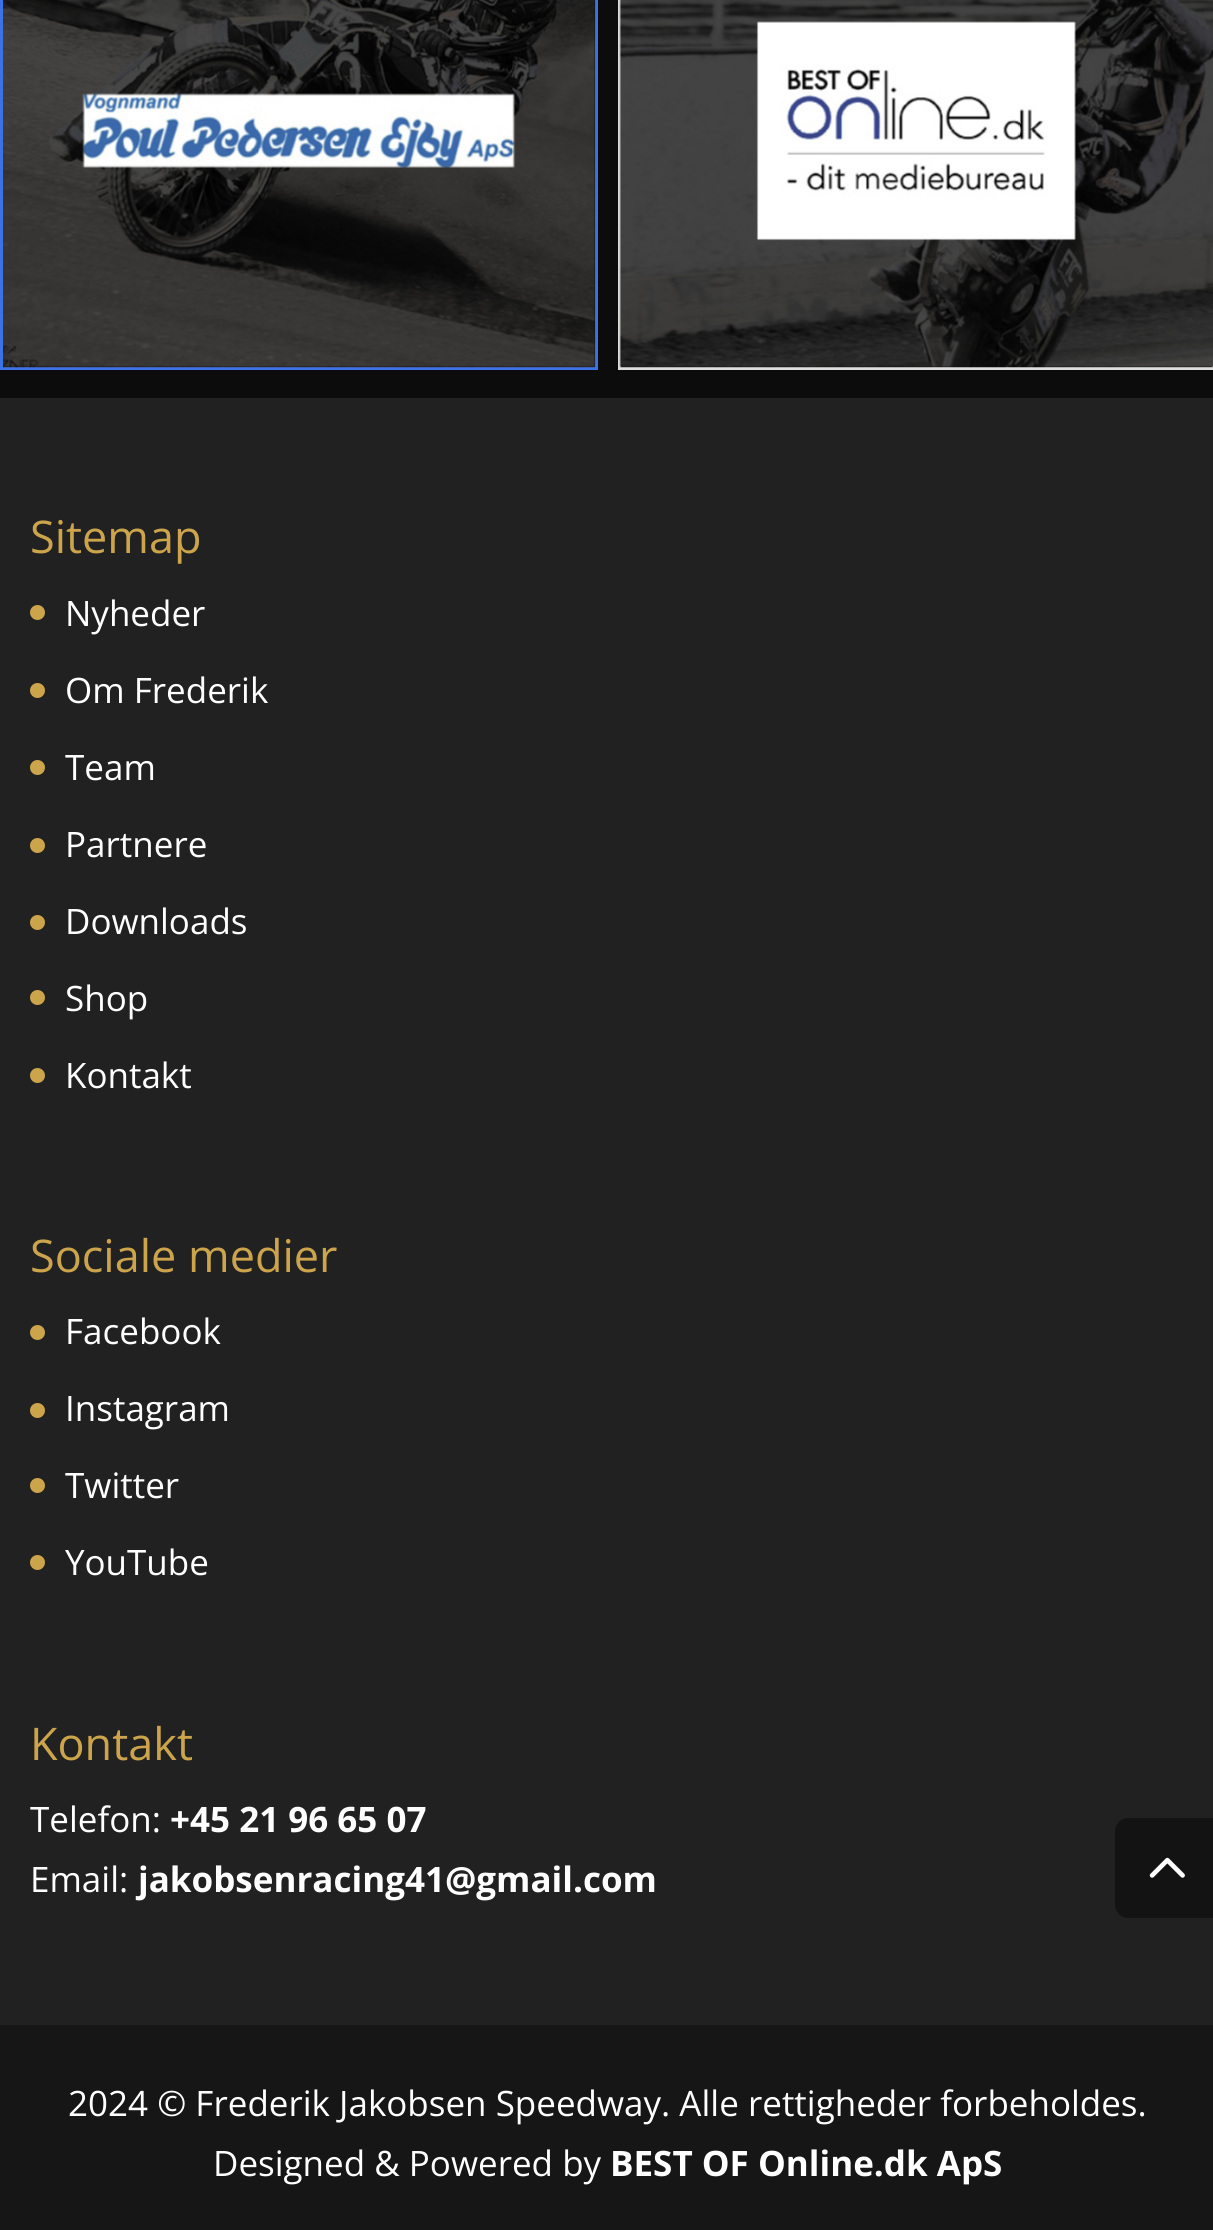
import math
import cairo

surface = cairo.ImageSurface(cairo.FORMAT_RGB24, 1213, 2230)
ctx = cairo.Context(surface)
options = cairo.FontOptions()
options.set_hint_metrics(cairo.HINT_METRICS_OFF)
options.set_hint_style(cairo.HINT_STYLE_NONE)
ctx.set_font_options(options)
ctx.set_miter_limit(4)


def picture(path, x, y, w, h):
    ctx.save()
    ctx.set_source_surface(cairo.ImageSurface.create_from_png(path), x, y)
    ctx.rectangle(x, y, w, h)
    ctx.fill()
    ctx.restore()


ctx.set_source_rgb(0.129, 0.129, 0.129)
ctx.paint()
ctx.set_source_rgb(0.047, 0.047, 0.047)
ctx.rectangle(0, 0, 1213, 398)
ctx.fill()
ctx.rectangle(1.5, -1.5, 595, 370)
ctx.set_source_rgb(0.239, 0.447, 0.906)
ctx.set_line_width(3)
ctx.stroke()
picture("img1.png", 3, 0, 593, 368)
ctx.rectangle(619.5, -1.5, 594, 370)
ctx.set_source_rgb(0.867, 0.867, 0.867)
ctx.stroke()
picture("img2.png", 619, 0, 594, 368)
ctx.select_font_face("Open Sans")
ctx.set_font_size(45)
ctx.set_source_rgb(0.796, 0.643, 0.294)
ctx.move_to(30, 553)
ctx.show_text("Sitemap")
ctx.new_path()
ctx.arc(37.5, 612.5, 7.5, 0, 2 * math.pi)
ctx.fill()
ctx.set_font_size(35)
ctx.set_source_rgb(1, 1, 1)
ctx.move_to(65, 626)
ctx.show_text("Nyheder")
ctx.set_source_rgb(0.796, 0.643, 0.294)
ctx.new_path()
ctx.arc(37.5, 690.5, 7.5, 0, 2 * math.pi)
ctx.fill()
ctx.set_source_rgb(1, 1, 1)
ctx.move_to(65, 703)
ctx.show_text("Om Frederik")
ctx.set_source_rgb(0.796, 0.643, 0.294)
ctx.new_path()
ctx.arc(37.5, 767.5, 7.5, 0, 2 * math.pi)
ctx.fill()
ctx.set_source_rgb(1, 1, 1)
ctx.move_to(65, 780)
ctx.show_text("Team")
ctx.set_source_rgb(0.796, 0.643, 0.294)
ctx.new_path()
ctx.arc(37.5, 845.5, 7.5, 0, 2 * math.pi)
ctx.fill()
ctx.set_source_rgb(1, 1, 1)
ctx.move_to(65, 857)
ctx.show_text("Partnere")
ctx.set_source_rgb(0.796, 0.643, 0.294)
ctx.new_path()
ctx.arc(37.5, 922.5, 7.5, 0, 2 * math.pi)
ctx.fill()
ctx.set_source_rgb(1, 1, 1)
ctx.move_to(65, 934)
ctx.show_text("Downloads")
ctx.set_source_rgb(0.796, 0.643, 0.294)
ctx.new_path()
ctx.arc(37.5, 997.5, 7.5, 0, 2 * math.pi)
ctx.fill()
ctx.set_source_rgb(1, 1, 1)
ctx.move_to(65, 1011)
ctx.show_text("Shop")
ctx.set_source_rgb(0.796, 0.643, 0.294)
ctx.new_path()
ctx.arc(37.5, 1075.5, 7.5, 0, 2 * math.pi)
ctx.fill()
ctx.set_source_rgb(1, 1, 1)
ctx.move_to(65, 1088)
ctx.show_text("Kontakt")
ctx.set_font_size(45)
ctx.set_source_rgb(0.796, 0.643, 0.294)
ctx.move_to(30, 1272)
ctx.show_text("Sociale medier")
ctx.new_path()
ctx.arc(37.5, 1332.5, 7.5, 0, 2 * math.pi)
ctx.fill()
ctx.set_font_size(35)
ctx.set_source_rgb(1, 1, 1)
ctx.move_to(65, 1344)
ctx.show_text("Facebook")
ctx.set_source_rgb(0.796, 0.643, 0.294)
ctx.new_path()
ctx.arc(37.5, 1410.5, 7.5, 0, 2 * math.pi)
ctx.fill()
ctx.set_source_rgb(1, 1, 1)
ctx.move_to(65, 1421)
ctx.show_text("Instagram")
ctx.set_source_rgb(0.796, 0.643, 0.294)
ctx.new_path()
ctx.arc(37.5, 1485.5, 7.5, 0, 2 * math.pi)
ctx.fill()
ctx.set_source_rgb(1, 1, 1)
ctx.move_to(65, 1498)
ctx.show_text("Twitter")
ctx.set_source_rgb(0.796, 0.643, 0.294)
ctx.new_path()
ctx.arc(37.5, 1562.5, 7.5, 0, 2 * math.pi)
ctx.fill()
ctx.set_source_rgb(1, 1, 1)
ctx.move_to(65, 1575)
ctx.show_text("YouTube")
ctx.set_font_size(45)
ctx.set_source_rgb(0.796, 0.643, 0.294)
ctx.move_to(30, 1760)
ctx.show_text("Kontakt")
ctx.set_font_size(35)
ctx.set_source_rgb(1, 1, 1)
ctx.move_to(30, 1832)
ctx.show_text("Telefon:")
ctx.select_font_face("Open Sans", cairo.FONT_SLANT_NORMAL, cairo.FONT_WEIGHT_BOLD)
ctx.move_to(170, 1832)
ctx.show_text("+45 21 96 65 07")
ctx.select_font_face("Open Sans")
ctx.move_to(30, 1892)
ctx.show_text("Email:")
ctx.select_font_face("Open Sans", cairo.FONT_SLANT_NORMAL, cairo.FONT_WEIGHT_BOLD)
ctx.move_to(138, 1892)
ctx.show_text("jakobsenracing41@gmail.com")
ctx.set_source_rgb(0.086, 0.086, 0.086)
ctx.rectangle(0, 2025, 1213, 205)
ctx.fill()
ctx.select_font_face("Open Sans")
ctx.set_source_rgb(1, 1, 1)
ctx.move_to(68, 2116)
ctx.show_text("2024 © Frederik Jakobsen Speedway. Alle rettigheder forbeholdes.")
ctx.move_to(213, 2176)
ctx.show_text("Designed & Powered by")
ctx.select_font_face("Open Sans", cairo.FONT_SLANT_NORMAL, cairo.FONT_WEIGHT_BOLD)
ctx.move_to(610, 2176)
ctx.show_text("BEST OF Online.dk ApS")
ctx.set_source_rgb(0.078, 0.078, 0.078)
ctx.new_path()
ctx.move_to(1128, 1818)
ctx.line_to(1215, 1818)
ctx.line_to(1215, 1918)
ctx.line_to(1128, 1918)
ctx.curve_to(1121, 1918, 1115, 1912, 1115, 1905)
ctx.line_to(1115, 1831)
ctx.curve_to(1115, 1824, 1121, 1818, 1128, 1818)
ctx.close_path()
ctx.fill()
picture("img3.png", 1149, 1857, 36, 21)
surface.write_to_png("page.png")
